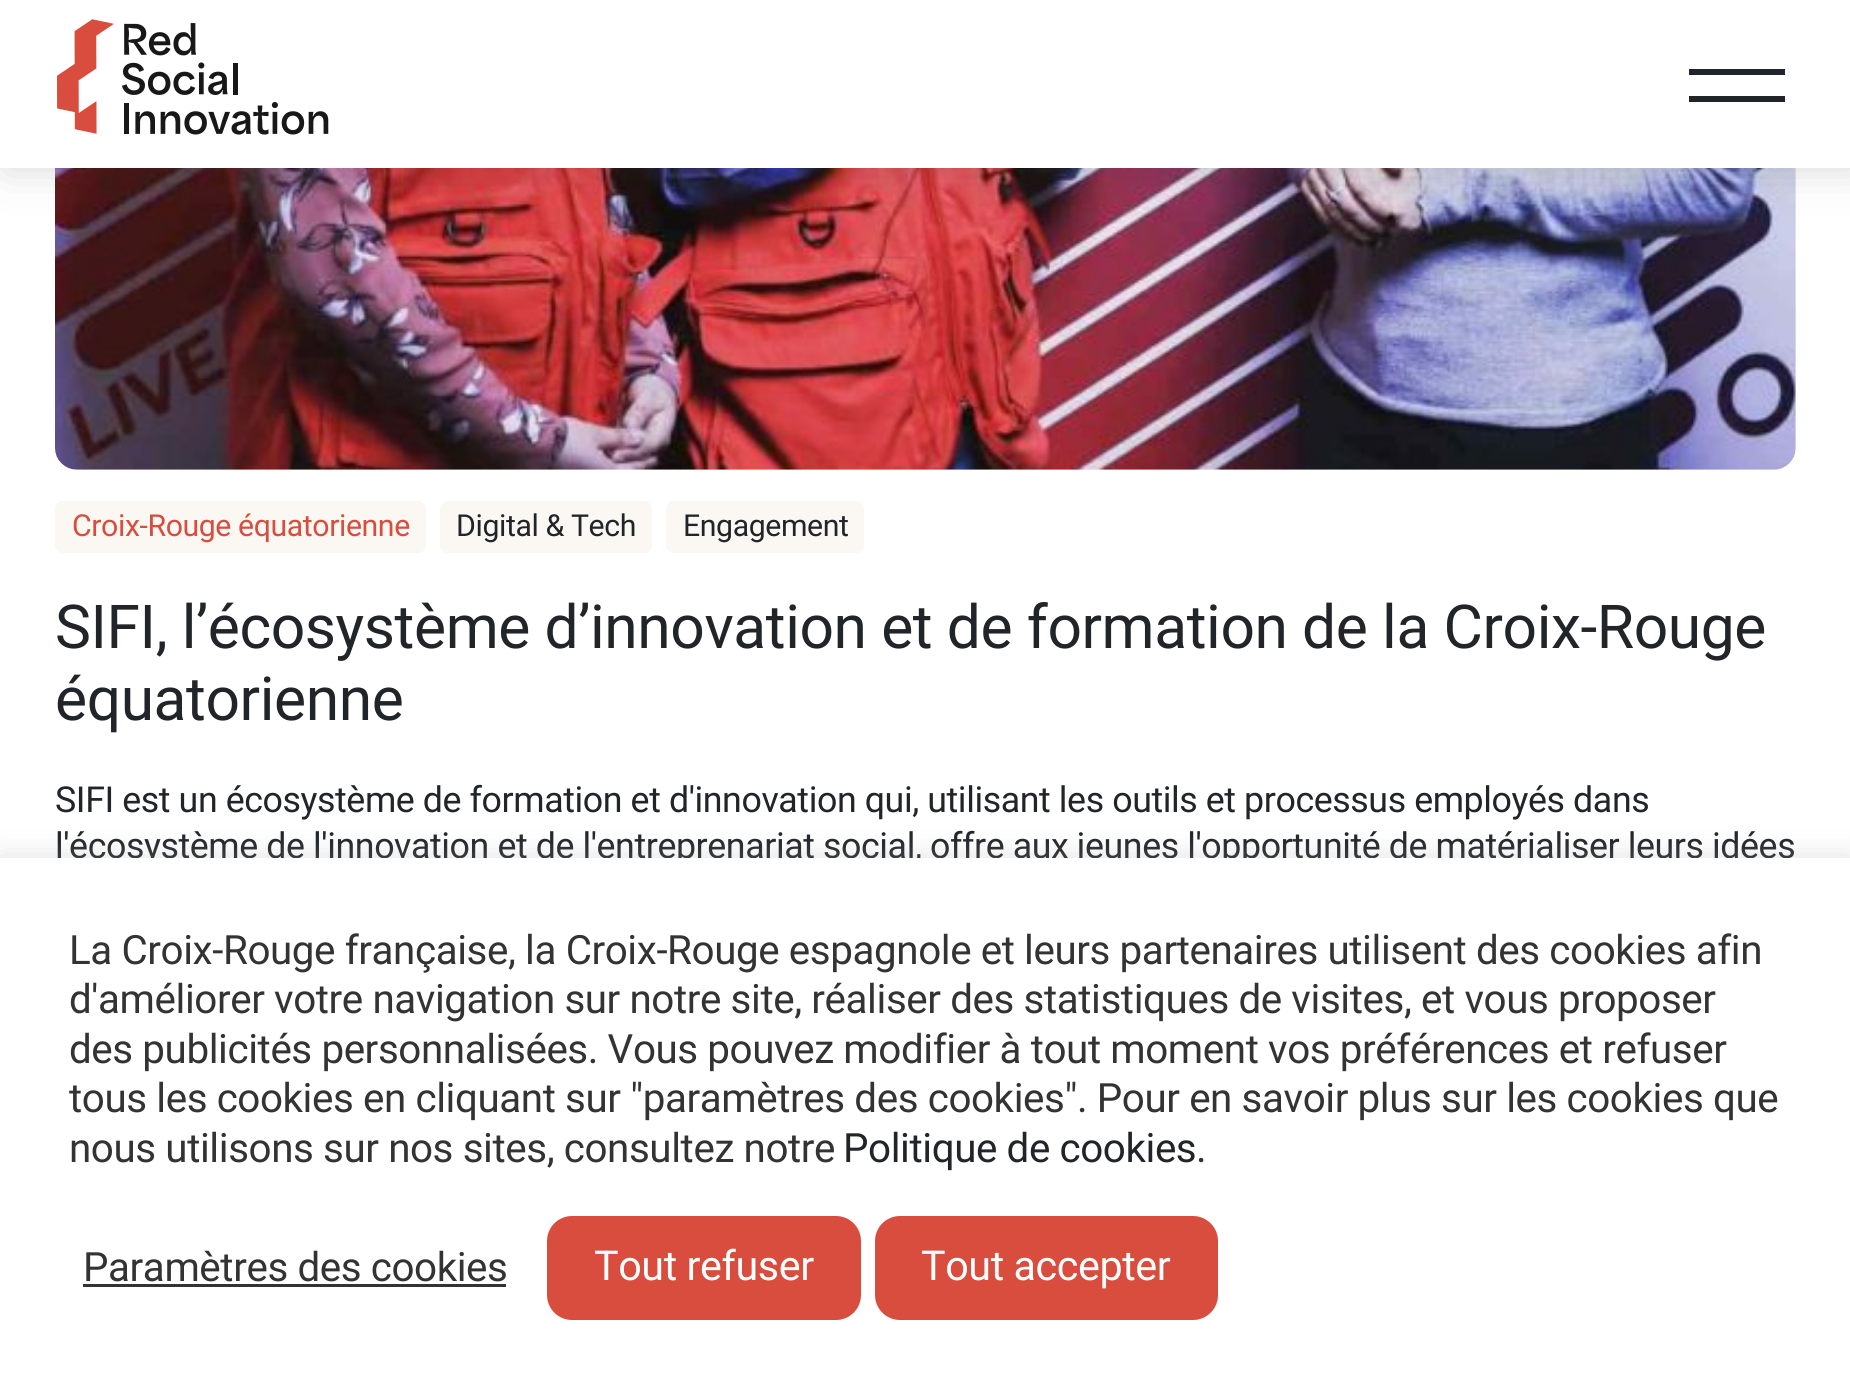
import math
import cairo

surface = cairo.ImageSurface(cairo.FORMAT_RGB24, 1850, 1400)
ctx = cairo.Context(surface)
options = cairo.FontOptions()
options.set_hint_metrics(cairo.HINT_METRICS_OFF)
options.set_hint_style(cairo.HINT_STYLE_NONE)
ctx.set_font_options(options)
ctx.set_miter_limit(4)


def spaced_text(x, y, s, letter, word):
    ctx.move_to(x, y)
    for ch in s:
        ctx.show_text(ch)
        ctx.rel_move_to(letter + word * (ch == ' '), 0)


def round_rect(x, y, w, h, r):
    ctx.new_sub_path()
    for i, (u, v) in enumerate([(x + w - r, y + h - r), (x + r, y + h - r), (x + r, y + r), (x + w - r, y + r)]):
        ctx.arc(u, v, r, i * math.pi / 2, (i + 1) * math.pi / 2)
    ctx.close_path()


def shadow(x, y, w, h, r, blur, alpha):
    ctx.push_group_with_content(cairo.CONTENT_ALPHA)
    ctx.set_operator(cairo.OPERATOR_SOURCE)
    for i in range(15, -16, -2):
        e = blur * i / 6
        if min(w, h) + 2 * e > 0:
            ctx.set_source_rgba(0, 0, 0, alpha * math.erfc((i - 1) / 8.5) / 2)
            round_rect(x - e, y - e, w + 2 * e, h + 2 * e, max(0, min(r + e + blur * .6, min(w, h) / 2 + e)))
            ctx.fill()
    ctx.mask(ctx.pop_group())


def picture(path, x, y, w, h):
    ctx.save()
    ctx.set_source_surface(cairo.ImageSurface.create_from_png(path), x, y)
    ctx.rectangle(x, y, w, h)
    ctx.fill()
    ctx.restore()


ctx.set_source_rgb(1, 1, 1)
ctx.paint()
ctx.set_source_rgb(0.984, 0.969, 0.953)
round_rect(55, -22, 1741, 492, 22)
ctx.fill()
picture("img2.png", 55, 168, 1741, 302)
ctx.set_source_rgb(0.192, 0.192, 0.192)
shadow(6, 0, 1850, 168, 0, 22, 0.2)
ctx.set_source_rgb(1, 1, 1)
ctx.rectangle(0, 0, 1850, 168)
ctx.fill()
picture("img1.png", 57, 19, 272, 116)
ctx.set_source_rgb(0.129, 0.145, 0.161)
ctx.rectangle(1689, 69, 96, 6)
ctx.fill()
ctx.rectangle(1689, 96, 96, 6)
ctx.fill()
ctx.set_source_rgb(0.984, 0.969, 0.953)
round_rect(55, 501, 371, 52, 8)
ctx.fill()
ctx.select_font_face("Roboto")
ctx.set_font_size(30.25)
ctx.set_source_rgb(0.851, 0.302, 0.243)
spaced_text(72, 536, "Croix-Rouge équatorienne", -0.41, 0)
ctx.set_source_rgb(0.984, 0.969, 0.953)
round_rect(440, 501, 212, 52, 8)
ctx.fill()
ctx.set_source_rgb(0.129, 0.145, 0.161)
spaced_text(456, 536, "Digital & Tech", -0.41, 0)
ctx.set_source_rgb(0.984, 0.969, 0.953)
round_rect(666, 501, 198, 52, 8)
ctx.fill()
ctx.set_source_rgb(0.129, 0.145, 0.161)
spaced_text(683, 536, "Engagement", -0.41, 0)
ctx.set_font_size(60.5)
spaced_text(55, 648, "SIFI, l’écosystème d’innovation et de formation de la Croix-Rouge", -0.41, 0)
spaced_text(55, 720, "équatorienne", -0.41, 0)
ctx.set_font_size(35.75)
spaced_text(55, 812, "SIFI est un écosystème de formation et d'innovation qui, utilisant les outils et processus employés dans", -0.41, 0)
spaced_text(55, 858, "l'écosystème de l'innovation et de l'entreprenariat social, offre aux jeunes l'opportunité de matérialiser leurs idées", -0.41, 0)
ctx.set_source_rgb(0.675, 0.671, 0.671)
shadow(0, 855, 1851, 545, 0, 14, 0.3)
ctx.set_source_rgb(1, 1, 1)
ctx.rectangle(0, 858, 1850, 542)
ctx.fill()
ctx.set_font_size(40.35)
ctx.set_source_rgb(0.2, 0.2, 0.2)
spaced_text(69, 964, "La Croix-Rouge française, la Croix-Rouge espagnole et leurs partenaires utilisent des cookies afin", -0.41, 0)
spaced_text(69, 1013, "d'améliorer votre navigation sur notre site, réaliser des statistiques de visites, et vous proposer", -0.41, 0)
spaced_text(69, 1063, "des publicités personnalisées. Vous pouvez modifier à tout moment vos préférences et refuser", -0.41, 0)
spaced_text(69, 1112, "tous les cookies en cliquant sur \"paramètres des cookies\". Pour en savoir plus sur les cookies que", -0.41, 0)
spaced_text(69, 1162, "nous utilisons sur nos sites, consultez notre", -0.41, 0)
ctx.set_source_rgb(0.129, 0.145, 0.161)
spaced_text(843, 1162, "Politique de cookies", -0.41, 0)
ctx.set_source_rgb(0.2, 0.2, 0.2)
spaced_text(1196, 1162, ".", -0.41, 0)
spaced_text(83, 1281, "Paramètres des cookies", -0.41, 0)
ctx.rectangle(83, 1284, 423, 3)
ctx.fill()
ctx.set_source_rgb(0.851, 0.302, 0.243)
round_rect(550, 1219, 308, 98, 22)
ctx.fill_preserve()
ctx.set_line_width(6)
ctx.stroke()
ctx.set_font_size(41.25)
ctx.set_source_rgb(1, 1, 1)
spaced_text(594, 1280, "Tout refuser", -0.41, 0)
ctx.set_source_rgb(0.851, 0.302, 0.243)
round_rect(878, 1219, 337, 98, 22)
ctx.fill_preserve()
ctx.stroke()
ctx.set_source_rgb(1, 1, 1)
spaced_text(921, 1280, "Tout accepter", -0.41, 0)
surface.write_to_png("page.png")
